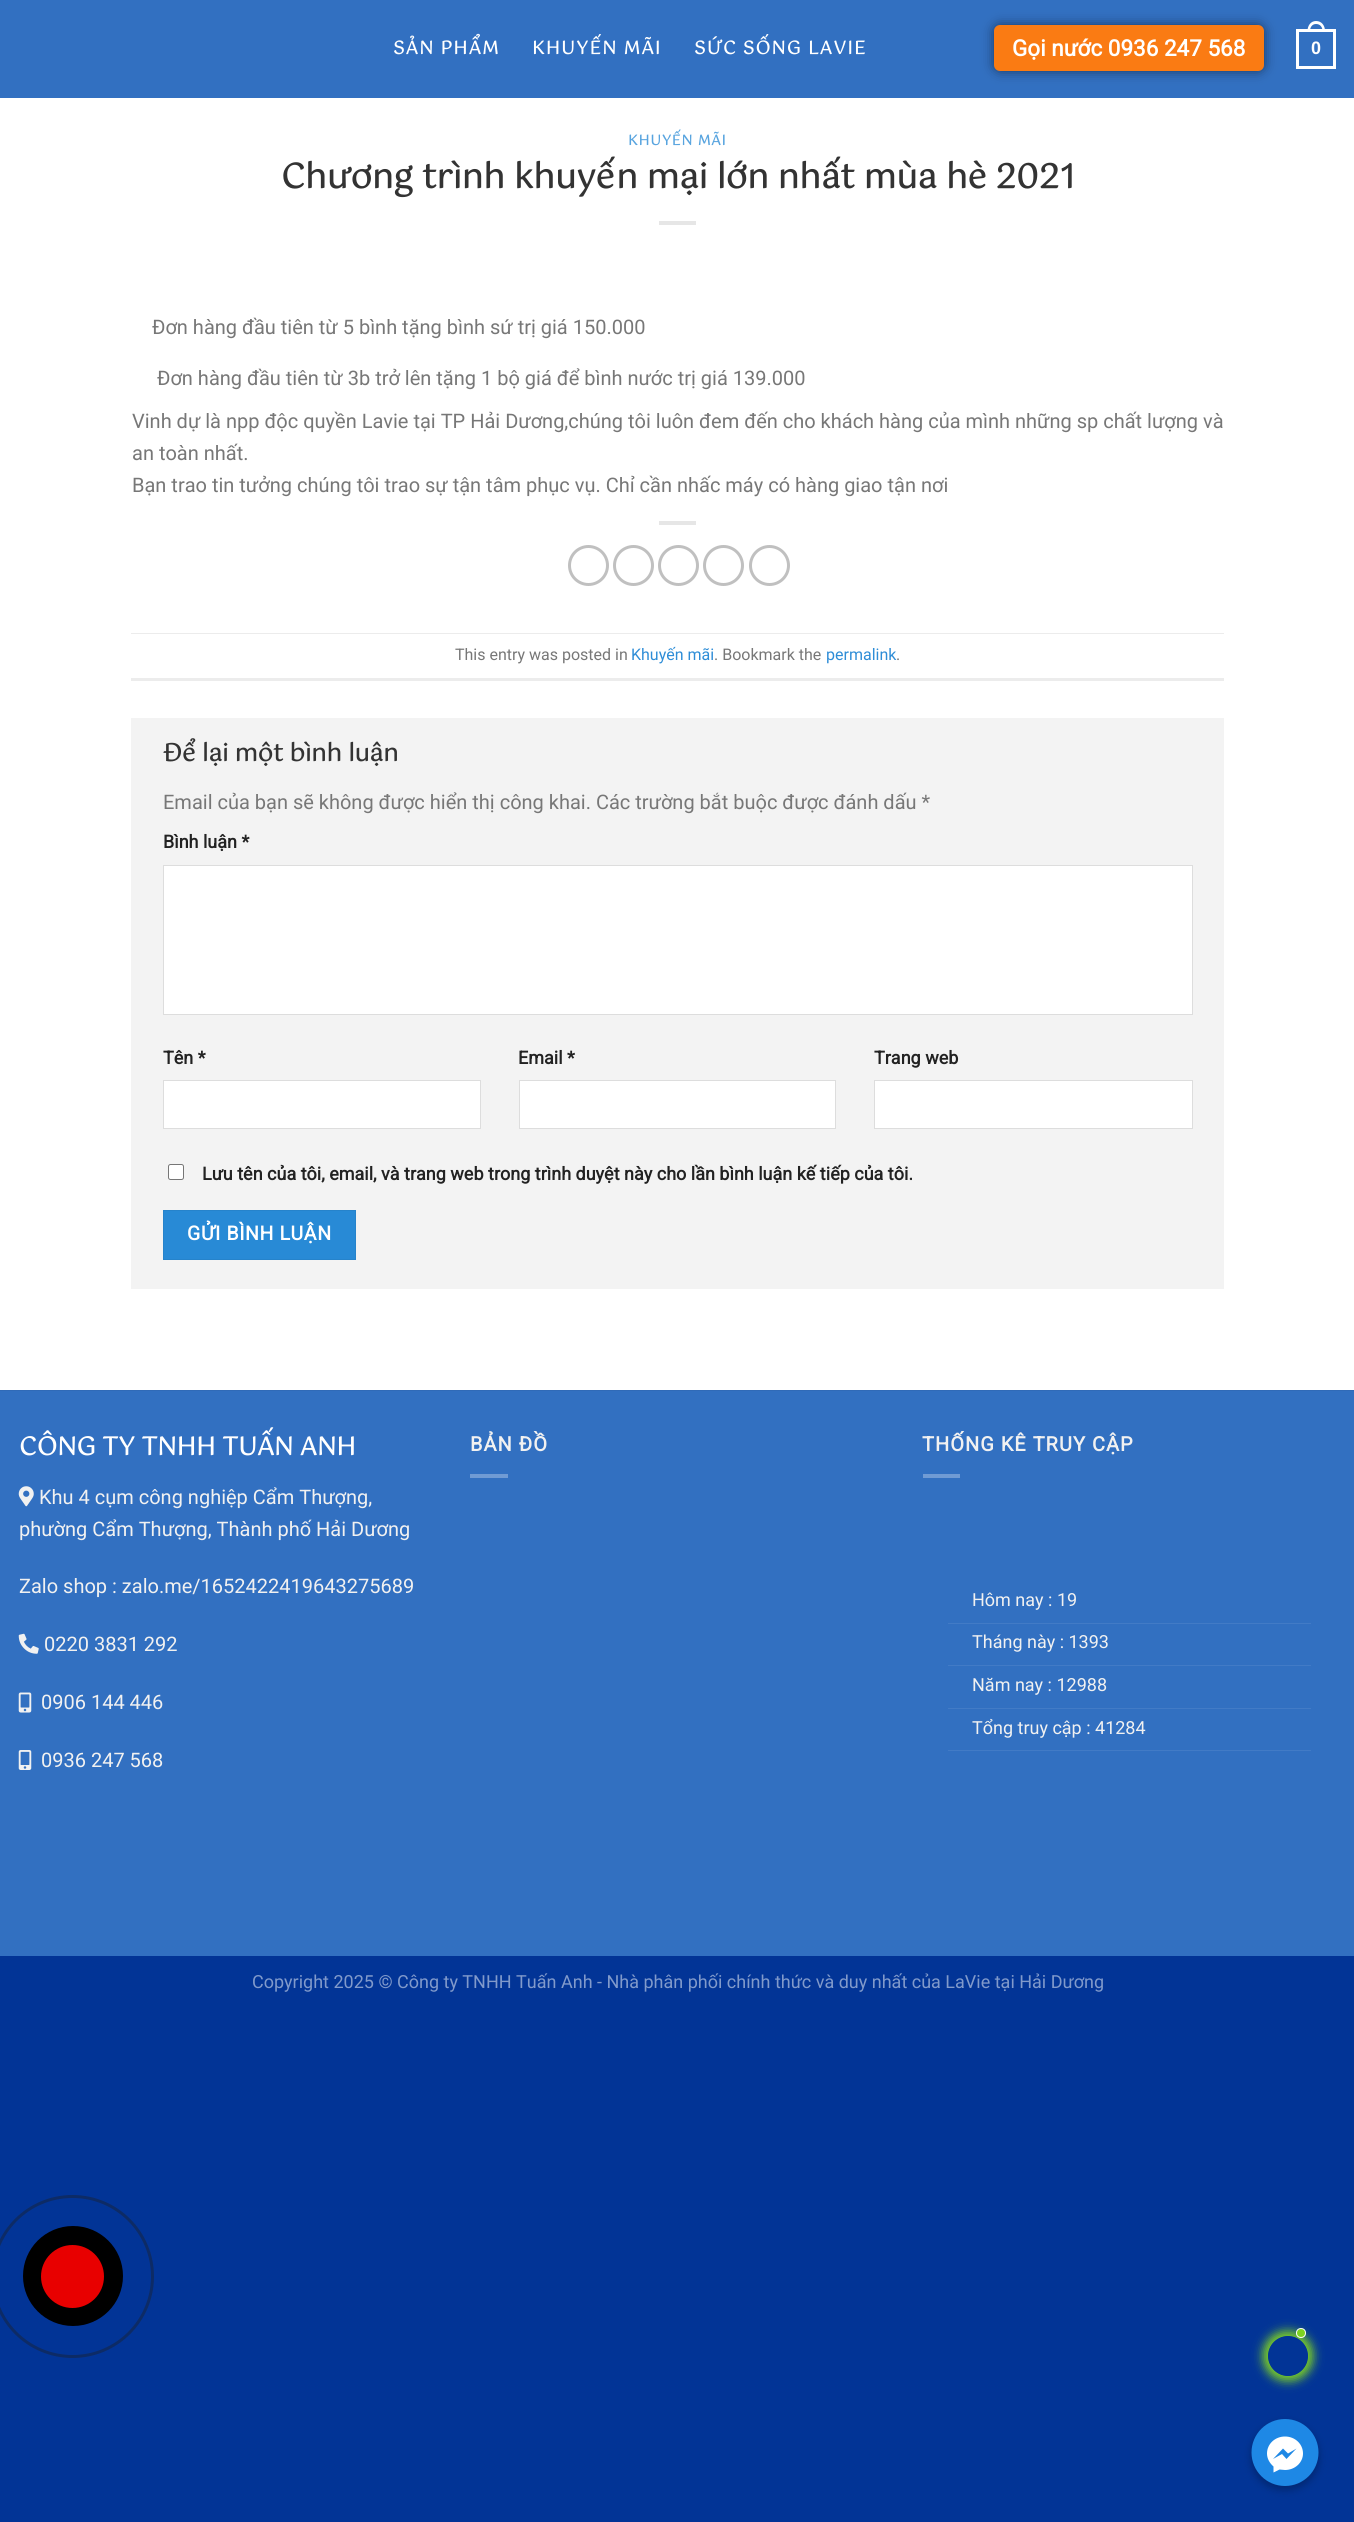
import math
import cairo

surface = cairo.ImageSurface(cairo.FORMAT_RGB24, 1354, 2522)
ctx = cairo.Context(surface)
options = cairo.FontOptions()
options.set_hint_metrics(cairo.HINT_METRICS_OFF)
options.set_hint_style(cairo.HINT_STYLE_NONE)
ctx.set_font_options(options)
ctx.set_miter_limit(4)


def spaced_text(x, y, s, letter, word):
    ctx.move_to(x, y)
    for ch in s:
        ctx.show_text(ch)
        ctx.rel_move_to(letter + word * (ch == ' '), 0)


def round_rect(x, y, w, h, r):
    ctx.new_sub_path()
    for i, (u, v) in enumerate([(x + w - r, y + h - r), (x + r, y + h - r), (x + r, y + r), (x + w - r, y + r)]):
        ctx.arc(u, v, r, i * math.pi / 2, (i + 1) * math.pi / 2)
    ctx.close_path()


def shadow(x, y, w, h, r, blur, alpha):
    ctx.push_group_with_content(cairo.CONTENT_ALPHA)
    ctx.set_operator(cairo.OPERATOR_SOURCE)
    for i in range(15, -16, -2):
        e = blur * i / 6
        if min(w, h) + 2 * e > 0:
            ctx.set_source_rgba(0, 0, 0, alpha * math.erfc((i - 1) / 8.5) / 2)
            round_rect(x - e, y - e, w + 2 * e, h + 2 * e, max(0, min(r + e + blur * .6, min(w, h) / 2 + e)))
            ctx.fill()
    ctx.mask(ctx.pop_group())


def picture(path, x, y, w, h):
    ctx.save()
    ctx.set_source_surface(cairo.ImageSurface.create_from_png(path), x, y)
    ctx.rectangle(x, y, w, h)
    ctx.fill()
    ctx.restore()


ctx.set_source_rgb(0.008, 0.204, 0.588)
ctx.paint()
ctx.set_source_rgb(1, 1, 1)
ctx.rectangle(0, 98, 1354, 1292)
ctx.fill()
ctx.set_source_rgb(0.196, 0.439, 0.757)
ctx.rectangle(0, 0, 1354, 98)
ctx.fill()
ctx.select_font_face("Gotu", cairo.FONT_SLANT_NORMAL, cairo.FONT_WEIGHT_BOLD)
ctx.set_font_size(18)
ctx.set_source_rgb(1, 1, 1)
spaced_text(393, 54, "SẢN PHẨM", 1.25, 0)
spaced_text(532, 54, "KHUYẾN MÃI", 1.25, 0)
spaced_text(694, 54, "SỨC SỐNG LAVIE", 1.25, 0)
ctx.set_source_rgb(0, 0, 0)
shadow(994, 25, 270, 46, 6, 6, 0.5)
ctx.set_source_rgb(0.98, 0.482, 0.075)
round_rect(994, 25, 270, 46, 6)
ctx.fill()
ctx.select_font_face("Roboto", cairo.FONT_SLANT_NORMAL, cairo.FONT_WEIGHT_BOLD)
ctx.set_font_size(22.5)
ctx.set_source_rgb(1, 1, 1)
ctx.move_to(1012, 56)
ctx.show_text("Gọi nước 0936 247 568")
ctx.rectangle(1297.5, 30.5, 37, 37)
ctx.set_line_width(3)
ctx.stroke()
ctx.set_fill_rule(cairo.FILL_RULE_EVEN_ODD)
ctx.new_path()
ctx.move_to(1316, 21)
ctx.curve_to(1322, 21, 1325, 26, 1325, 31)
ctx.line_to(1307.5, 31)
ctx.curve_to(1307.5, 26, 1310.5, 21, 1316, 21)
ctx.close_path()
ctx.move_to(1316, 24)
ctx.curve_to(1320.5, 24, 1322.5, 27.5, 1322.5, 31)
ctx.line_to(1310, 31)
ctx.curve_to(1310, 27.5, 1312, 24, 1316, 24)
ctx.close_path()
ctx.fill()
ctx.select_font_face("Liberation Sans", cairo.FONT_SLANT_NORMAL, cairo.FONT_WEIGHT_BOLD)
ctx.set_font_size(18)
ctx.move_to(1311, 54)
ctx.show_text("0")
ctx.select_font_face("Gotu", cairo.FONT_SLANT_NORMAL, cairo.FONT_WEIGHT_BOLD)
ctx.set_font_size(14)
ctx.set_source_rgb(0.345, 0.643, 0.875)
spaced_text(628, 145, "KHUYẾN MÃI", 0.75, 0)
ctx.set_font_size(34)
ctx.set_source_rgb(0.2, 0.2, 0.2)
ctx.move_to(281, 188)
ctx.show_text("Chương trình khuyến mại lớn nhất mùa hè 2021")
ctx.set_source_rgb(0.902, 0.902, 0.902)
ctx.rectangle(659, 221, 37, 4)
ctx.fill()
ctx.select_font_face("Roboto")
ctx.set_font_size(20)
ctx.set_source_rgb(0.467, 0.467, 0.467)
ctx.move_to(152, 334)
ctx.show_text("Đơn hàng đầu tiên từ 5 bình tặng bình sứ trị giá 150.000")
ctx.move_to(157, 385)
ctx.show_text("Đơn hàng đầu tiên từ 3b trở lên tặng 1 bộ giá để bình nước trị giá 139.000")
ctx.move_to(132, 428)
ctx.show_text("Vinh dự là npp độc quyền Lavie tại TP Hải Dương,chúng tôi luôn đem đến cho khách hàng của mình những sp chất lượng và")
ctx.move_to(132, 460)
ctx.show_text("an toàn nhất.")
ctx.move_to(132, 492)
ctx.show_text("Bạn trao tin tưởng chúng tôi trao sự tận tâm phục vụ. Chỉ cần nhấc máy có hàng giao tận nơi")
ctx.set_source_rgb(0.902, 0.902, 0.902)
ctx.rectangle(659, 521, 37, 4)
ctx.fill()
ctx.arc(588.5, 565.5, 19, 0, 2 * math.pi)
ctx.set_source_rgb(0.753, 0.753, 0.753)
ctx.stroke()
ctx.arc(633.5, 565.5, 19, 0, 2 * math.pi)
ctx.stroke()
ctx.arc(678.5, 565.5, 19, 0, 2 * math.pi)
ctx.stroke()
ctx.arc(723.5, 565.5, 19, 0, 2 * math.pi)
ctx.stroke()
ctx.arc(769.5, 565.5, 19, 0, 2 * math.pi)
ctx.stroke()
ctx.set_source_rgb(0.925, 0.925, 0.925)
ctx.rectangle(131, 633, 1093, 1)
ctx.fill()
ctx.rectangle(131, 678, 1093, 3)
ctx.fill()
ctx.set_font_size(16)
ctx.set_source_rgb(0.467, 0.467, 0.467)
ctx.move_to(455, 660)
ctx.show_text("This entry was posted in")
ctx.set_source_rgb(0.18, 0.553, 0.843)
ctx.move_to(631, 660)
ctx.show_text("Khuyến mãi")
ctx.set_source_rgb(0.467, 0.467, 0.467)
ctx.move_to(714, 660)
ctx.show_text(". Bookmark the")
ctx.set_source_rgb(0.18, 0.553, 0.843)
ctx.move_to(826, 660)
ctx.show_text("permalink")
ctx.set_source_rgb(0.467, 0.467, 0.467)
ctx.move_to(896, 660)
ctx.show_text(".")
ctx.set_source_rgb(0.953, 0.953, 0.953)
ctx.rectangle(131, 718, 1093, 571)
ctx.fill()
ctx.select_font_face("Gotu", cairo.FONT_SLANT_NORMAL, cairo.FONT_WEIGHT_BOLD)
ctx.set_font_size(24)
ctx.set_source_rgb(0.2, 0.2, 0.2)
ctx.move_to(163, 761)
ctx.show_text("Để lại một bình luận")
ctx.select_font_face("Roboto")
ctx.set_font_size(20)
ctx.set_source_rgb(0.467, 0.467, 0.467)
ctx.move_to(163, 809)
ctx.show_text("Email của bạn sẽ không được hiển thị công khai. Các trường bắt buộc được đánh dấu *")
ctx.select_font_face("Roboto", cairo.FONT_SLANT_NORMAL, cairo.FONT_WEIGHT_BOLD)
ctx.set_font_size(18)
ctx.set_source_rgb(0.133, 0.133, 0.133)
ctx.move_to(163, 848)
ctx.show_text("Bình luận *")
ctx.set_source_rgb(1, 1, 1)
ctx.rectangle(163.5, 865.5, 1029, 149)
ctx.fill_preserve()
ctx.set_source_rgb(0.867, 0.867, 0.867)
ctx.set_line_width(1)
ctx.stroke()
ctx.set_source_rgb(0.133, 0.133, 0.133)
ctx.move_to(163, 1064)
ctx.show_text("Tên *")
ctx.set_source_rgb(1, 1, 1)
ctx.rectangle(163.5, 1080.5, 317, 48)
ctx.fill_preserve()
ctx.set_source_rgb(0.867, 0.867, 0.867)
ctx.stroke()
ctx.set_source_rgb(0.133, 0.133, 0.133)
ctx.move_to(518, 1064)
ctx.show_text("Email *")
ctx.set_source_rgb(1, 1, 1)
ctx.rectangle(519.5, 1080.5, 316, 48)
ctx.fill_preserve()
ctx.set_source_rgb(0.867, 0.867, 0.867)
ctx.stroke()
ctx.set_source_rgb(0.133, 0.133, 0.133)
ctx.move_to(874, 1064)
ctx.show_text("Trang web")
ctx.set_source_rgb(1, 1, 1)
ctx.rectangle(874.5, 1080.5, 318, 48)
ctx.fill_preserve()
ctx.set_source_rgb(0.867, 0.867, 0.867)
ctx.stroke()
ctx.set_source_rgb(1, 1, 1)
round_rect(168.5, 1164.5, 15, 15, 2)
ctx.fill_preserve()
ctx.set_source_rgb(0.463, 0.463, 0.463)
ctx.stroke()
ctx.set_source_rgb(0.133, 0.133, 0.133)
ctx.move_to(202, 1180)
ctx.show_text("Lưu tên của tôi, email, và trang web trong trình duyệt này cho lần bình luận kế tiếp của tôi.")
ctx.set_source_rgb(0.157, 0.541, 0.839)
ctx.rectangle(163.5, 1210.5, 192, 49)
ctx.fill_preserve()
ctx.set_source_rgb(0.149, 0.514, 0.796)
ctx.stroke()
ctx.set_font_size(19.5)
ctx.set_source_rgb(1, 1, 1)
spaced_text(187, 1240, "GỬI BÌNH LUẬN", 0.6, 0)
ctx.set_source_rgb(0.196, 0.439, 0.757)
ctx.rectangle(0, 1391, 1354, 565)
ctx.fill()
ctx.set_source_rgb(0.188, 0.416, 0.718)
ctx.rectangle(0, 1390, 1354, 1)
ctx.fill()
ctx.select_font_face("Gotu", cairo.FONT_SLANT_NORMAL, cairo.FONT_WEIGHT_BOLD)
ctx.set_font_size(25)
ctx.set_source_rgb(1, 1, 1)
ctx.move_to(19, 1455)
ctx.show_text("CÔNG TY TNHH TUẤN ANH")
picture("img1.png", 18, 1486, 16, 21)
ctx.select_font_face("Roboto")
ctx.set_font_size(20)
ctx.set_source_rgb(0.945, 0.945, 0.945)
ctx.move_to(39, 1504)
ctx.show_text("Khu 4 cụm công nghiệp Cẩm Thượng,")
ctx.move_to(19, 1536)
ctx.show_text("phường Cẩm Thượng, Thành phố Hải Dương")
ctx.move_to(19, 1593)
ctx.show_text("Zalo shop : zalo.me/1652422419643275689")
picture("img2.png", 18, 1633, 21, 21)
ctx.move_to(44, 1651)
ctx.show_text("0220 3831 292")
picture("img3.png", 18, 1692, 14, 21)
ctx.move_to(41, 1709)
ctx.show_text("0906 144 446")
picture("img4.png", 18, 1750, 14, 20)
ctx.move_to(41, 1767)
ctx.show_text("0936 247 568")
ctx.select_font_face("Roboto", cairo.FONT_SLANT_NORMAL, cairo.FONT_WEIGHT_BOLD)
spaced_text(470, 1451, "BẢN ĐỒ", 1, 0)
ctx.set_source_rgb(0.439, 0.608, 0.831)
ctx.rectangle(470, 1474, 38, 4)
ctx.fill()
ctx.set_source_rgb(0.945, 0.945, 0.945)
spaced_text(922, 1451, "THỐNG KÊ TRUY CẬP", 1, 0)
ctx.set_source_rgb(0.439, 0.608, 0.831)
ctx.rectangle(923, 1474, 37, 4)
ctx.fill()
ctx.set_source_rgb(0.259, 0.482, 0.776)
ctx.rectangle(948, 1623, 363, 1)
ctx.fill()
ctx.select_font_face("Roboto")
ctx.set_font_size(18)
ctx.set_source_rgb(0.945, 0.945, 0.945)
ctx.move_to(972, 1606)
ctx.show_text("Hôm nay : 19")
ctx.set_source_rgb(0.259, 0.482, 0.776)
ctx.rectangle(948, 1665, 363, 1)
ctx.fill()
ctx.set_source_rgb(0.945, 0.945, 0.945)
ctx.move_to(972, 1648)
ctx.show_text("Tháng này : 1393")
ctx.set_source_rgb(0.259, 0.482, 0.776)
ctx.rectangle(948, 1708, 363, 1)
ctx.fill()
ctx.set_source_rgb(0.945, 0.945, 0.945)
ctx.move_to(972, 1691)
ctx.show_text("Năm nay : 12988")
ctx.set_source_rgb(0.259, 0.482, 0.776)
ctx.rectangle(948, 1750, 363, 1)
ctx.fill()
ctx.set_source_rgb(0.945, 0.945, 0.945)
ctx.move_to(972, 1734)
ctx.show_text("Tổng truy cập : 41284")
ctx.set_source_rgb(0.506, 0.604, 0.796)
ctx.move_to(252, 1988)
ctx.show_text("Copyright 2025 © Công ty TNHH Tuấn Anh - Nhà phân phối chính thức và duy nhất của LaVie tại Hải Dương")
ctx.new_path()
ctx.arc(72.5, 2276.5, 80, 0, 2 * math.pi)
ctx.set_source_rgb(0.051, 0.169, 0.4)
ctx.set_line_width(3)
ctx.stroke()
ctx.set_source_rgb(0, 0, 0)
ctx.arc(73, 2276, 50, 0, 2 * math.pi)
ctx.fill()
ctx.set_source_rgb(0.91, 0, 0)
ctx.arc(72.5, 2276.5, 31.5, 0, 2 * math.pi)
ctx.fill()
ctx.save()
ctx.new_path()
ctx.move_to(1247, 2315)
ctx.line_to(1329, 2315)
ctx.line_to(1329, 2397)
ctx.line_to(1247, 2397)
ctx.close_path()
ctx.move_to(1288, 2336)
ctx.curve_to(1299, 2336, 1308, 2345, 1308, 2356)
ctx.curve_to(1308, 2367, 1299, 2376, 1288, 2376)
ctx.curve_to(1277, 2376, 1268, 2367, 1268, 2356)
ctx.curve_to(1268, 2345, 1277, 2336, 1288, 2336)
ctx.close_path()
ctx.clip()
ctx.set_source_rgb(0.494, 0.827, 0.129)
shadow(1263, 2331, 50, 50, 25, 5, 1)
ctx.restore()
ctx.set_source_rgb(0.494, 0.827, 0.129)
ctx.arc(1301, 2333, 4.5, 0, 2 * math.pi)
ctx.fill_preserve()
ctx.set_source_rgb(1, 1, 1)
ctx.set_line_width(1)
ctx.stroke()
ctx.set_source_rgb(0, 0, 0)
shadow(1251, 2423, 68, 67, 33.5, 4, 0.25)
ctx.set_source_rgb(0.118, 0.533, 0.898)
ctx.arc(1285, 2452.5, 33.5, 0, 2 * math.pi)
ctx.fill()
ctx.set_source_rgb(1, 1, 1)
ctx.new_path()
ctx.move_to(1267, 2453.5)
ctx.curve_to(1267, 2444, 1275, 2436.5, 1285, 2436.5)
ctx.curve_to(1295, 2436.5, 1303, 2444, 1303, 2453.5)
ctx.curve_to(1303, 2462.5, 1295, 2470, 1285, 2470)
ctx.curve_to(1283, 2470, 1281.5, 2469.5, 1279.5, 2469.5)
ctx.line_to(1273.5, 2472.5)
ctx.line_to(1273.5, 2466.5)
ctx.curve_to(1269.5, 2463, 1267, 2458.5, 1267, 2453.5)
ctx.close_path()
ctx.move_to(1282, 2454)
ctx.line_to(1286.5, 2459)
ctx.line_to(1296.5, 2448.5)
ctx.line_to(1288, 2453.5)
ctx.line_to(1283, 2448.5)
ctx.line_to(1273, 2459)
ctx.close_path()
ctx.fill()
surface.write_to_png("page.png")
